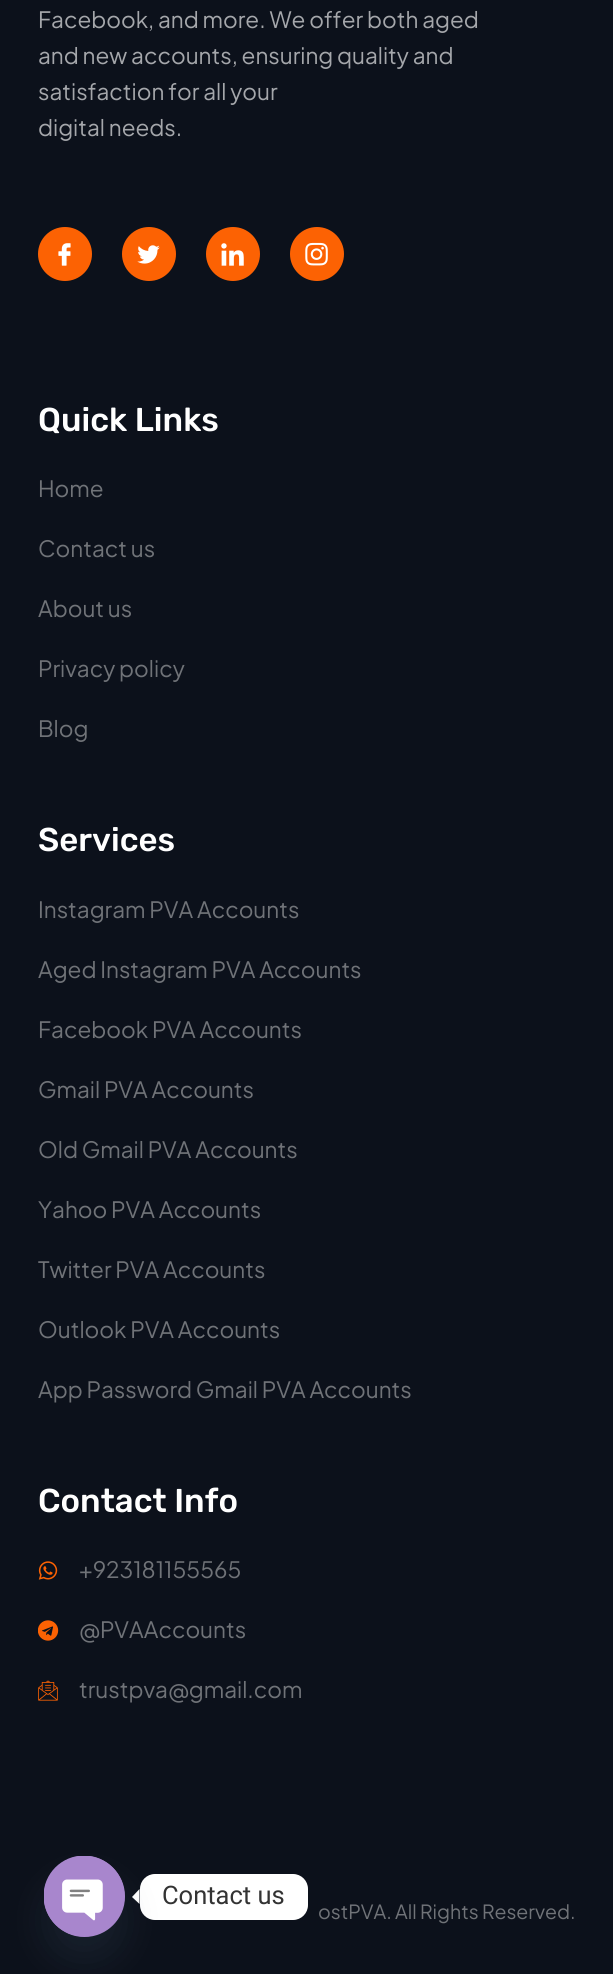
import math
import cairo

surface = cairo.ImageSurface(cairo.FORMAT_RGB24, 613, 1974)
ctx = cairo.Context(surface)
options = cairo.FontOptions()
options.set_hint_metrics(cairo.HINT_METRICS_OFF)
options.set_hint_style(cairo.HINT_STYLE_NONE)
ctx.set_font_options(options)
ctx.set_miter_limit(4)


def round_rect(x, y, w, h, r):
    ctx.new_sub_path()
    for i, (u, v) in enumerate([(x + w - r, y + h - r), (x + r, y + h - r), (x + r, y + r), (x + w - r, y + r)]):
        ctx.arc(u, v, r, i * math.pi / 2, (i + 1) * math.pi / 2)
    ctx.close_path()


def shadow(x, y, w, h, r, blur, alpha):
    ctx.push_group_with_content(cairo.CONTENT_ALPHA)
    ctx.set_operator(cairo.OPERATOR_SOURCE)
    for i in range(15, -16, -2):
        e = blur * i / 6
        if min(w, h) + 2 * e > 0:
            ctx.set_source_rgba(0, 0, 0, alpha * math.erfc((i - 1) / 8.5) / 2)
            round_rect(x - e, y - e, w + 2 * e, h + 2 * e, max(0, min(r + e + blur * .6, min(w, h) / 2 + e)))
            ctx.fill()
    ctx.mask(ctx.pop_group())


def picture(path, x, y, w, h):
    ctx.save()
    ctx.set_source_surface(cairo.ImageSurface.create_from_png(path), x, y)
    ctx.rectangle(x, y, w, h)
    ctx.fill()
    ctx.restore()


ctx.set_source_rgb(0.047, 0.067, 0.106)
ctx.paint()
ctx.select_font_face("Plus Jakarta Sans")
ctx.set_font_size(22.5)
ctx.set_source_rgb(0.647, 0.655, 0.671)
ctx.move_to(38, 28)
ctx.show_text("Facebook, and more. We offer both aged")
ctx.move_to(38, 64)
ctx.show_text("and new accounts, ensuring quality and")
ctx.move_to(38, 100)
ctx.show_text("satisfaction for all your")
ctx.move_to(38, 136)
ctx.show_text("digital needs.")
ctx.set_source_rgb(0.988, 0.384, 0.012)
ctx.new_path()
ctx.arc(65, 254, 27, 0, 2 * math.pi)
ctx.fill()
picture("img1.png", 58, 243, 13, 23)
ctx.arc(149, 254, 27, 0, 2 * math.pi)
ctx.fill()
picture("img2.png", 137, 245, 23, 19)
ctx.arc(233, 254, 27, 0, 2 * math.pi)
ctx.fill()
picture("img3.png", 221, 243, 23, 23)
ctx.arc(317, 254, 27, 0, 2 * math.pi)
ctx.fill()
picture("img4.png", 305, 242, 23, 24)
ctx.select_font_face("Rubik Medium")
ctx.set_font_size(33)
ctx.set_source_rgb(1, 1, 1)
ctx.move_to(38, 431)
ctx.show_text("Quick Links")
ctx.select_font_face("Plus Jakarta Sans")
ctx.set_font_size(22.5)
ctx.set_source_rgb(0.439, 0.451, 0.471)
ctx.move_to(38, 497)
ctx.show_text("Home")
ctx.move_to(38, 557)
ctx.show_text("Contact us")
ctx.move_to(38, 617)
ctx.show_text("About us")
ctx.move_to(38, 677)
ctx.show_text("Privacy policy")
ctx.move_to(38, 737)
ctx.show_text("Blog")
ctx.select_font_face("Rubik Medium")
ctx.set_font_size(33)
ctx.set_source_rgb(1, 1, 1)
ctx.move_to(38, 851)
ctx.show_text("Services")
ctx.select_font_face("Plus Jakarta Sans")
ctx.set_font_size(22.5)
ctx.set_source_rgb(0.439, 0.451, 0.471)
ctx.move_to(38, 918)
ctx.show_text("Instagram PVA Accounts")
ctx.move_to(38, 978)
ctx.show_text("Aged Instagram PVA Accounts")
ctx.move_to(38, 1038)
ctx.show_text("Facebook PVA Accounts")
ctx.move_to(38, 1098)
ctx.show_text("Gmail PVA Accounts")
ctx.move_to(38, 1158)
ctx.show_text("Old Gmail PVA Accounts")
ctx.move_to(38, 1218)
ctx.show_text("Yahoo PVA Accounts")
ctx.move_to(38, 1278)
ctx.show_text("Twitter PVA Accounts")
ctx.move_to(38, 1338)
ctx.show_text("Outlook PVA Accounts")
ctx.move_to(38, 1398)
ctx.show_text("App Password Gmail PVA Accounts")
ctx.select_font_face("Rubik Medium")
ctx.set_font_size(33)
ctx.set_source_rgb(1, 1, 1)
ctx.move_to(38, 1512)
ctx.show_text("Contact Info")
picture("img5.png", 38, 1561, 20, 19)
ctx.select_font_face("Plus Jakarta Sans")
ctx.set_font_size(22.5)
ctx.set_source_rgb(0.439, 0.451, 0.471)
ctx.move_to(79, 1578)
ctx.show_text("+923181155565")
picture("img6.png", 38, 1620, 21, 21)
ctx.move_to(79, 1638)
ctx.show_text("@PVAAccounts")
picture("img7.png", 38, 1680, 20, 21)
ctx.move_to(79, 1698)
ctx.show_text("trustpva@gmail.com")
ctx.set_font_size(19.5)
ctx.move_to(318, 1919)
ctx.show_text("ostPVA. All Rights Reserved.")
ctx.set_source_rgb(1, 1, 1)
round_rect(140, 1874, 168, 46, 15)
ctx.fill()
ctx.new_path()
ctx.move_to(139.5, 1889)
ctx.line_to(139.5, 1904)
ctx.line_to(132, 1897)
ctx.close_path()
ctx.fill()
ctx.set_source_rgb(0.286, 0.408, 0.494)
shadow(44, 1880, 81, 81, 40.5, 18, 0.16)
ctx.set_source_rgb(0.659, 0.525, 0.804)
ctx.arc(84.5, 1896.5, 40.5, 0, 2 * math.pi)
ctx.fill()
picture("img8.png", 44, 1856, 81, 81)
ctx.select_font_face("Roboto")
ctx.set_font_size(25.5)
ctx.set_source_rgb(0.2, 0.2, 0.2)
ctx.move_to(162, 1904)
ctx.show_text("Contact us")
surface.write_to_png("page.png")
